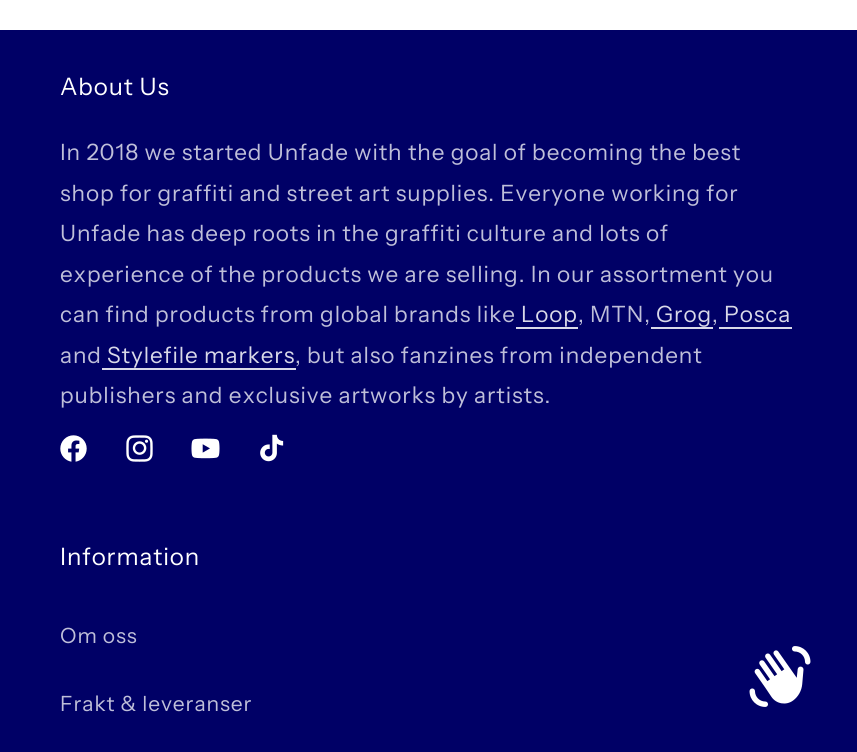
import math
import cairo

surface = cairo.ImageSurface(cairo.FORMAT_RGB24, 857, 752)
ctx = cairo.Context(surface)
options = cairo.FontOptions()
options.set_hint_metrics(cairo.HINT_METRICS_OFF)
options.set_hint_style(cairo.HINT_STYLE_NONE)
ctx.set_font_options(options)
ctx.set_miter_limit(4)


def spaced_text(x, y, s, letter, word):
    ctx.move_to(x, y)
    for ch in s:
        ctx.show_text(ch)
        ctx.rel_move_to(letter + word * (ch == ' '), 0)


def picture(path, x, y, w, h):
    ctx.save()
    ctx.set_source_surface(cairo.ImageSurface.create_from_png(path), x, y)
    ctx.rectangle(x, y, w, h)
    ctx.fill()
    ctx.restore()


ctx.set_source_rgb(1, 1, 1)
ctx.paint()
ctx.set_source_rgb(0, 0, 0.4)
ctx.rectangle(0, 30, 857, 722)
ctx.fill()
ctx.select_font_face("Instrument Sans")
ctx.set_font_size(24)
ctx.set_source_rgb(1, 1, 1)
spaced_text(60, 95, "About Us", 0.9, 0)
ctx.set_font_size(22.5)
ctx.set_source_rgb(0.749, 0.749, 0.851)
spaced_text(60, 160, "In 2018 we started Unfade with the goal of becoming the best", 0.9, 0)
spaced_text(60, 201, "shop for graffiti and street art supplies. Everyone working for", 0.9, 0)
spaced_text(60, 241, "Unfade has deep roots in the graffiti culture and lots of", 0.9, 0)
spaced_text(60, 282, "experience of the products we are selling. In our assortment you", 0.9, 0)
spaced_text(60, 322, "can find products from global brands like", 0.9, 0)
ctx.set_source_rgb(0.851, 0.851, 0.91)
spaced_text(521, 322, "Loop", 0.9, 0)
ctx.rectangle(516, 327, 62, 2)
ctx.fill()
ctx.set_source_rgb(0.749, 0.749, 0.851)
spaced_text(578, 322, ", MTN,", 0.9, 0)
ctx.set_source_rgb(0.851, 0.851, 0.91)
spaced_text(656, 322, "Grog", 0.9, 0)
ctx.rectangle(651, 327, 62, 2)
ctx.fill()
ctx.set_source_rgb(0.749, 0.749, 0.851)
spaced_text(712, 322, ",", 0.9, 0)
ctx.set_source_rgb(0.851, 0.851, 0.91)
spaced_text(724, 322, "Posca", 0.9, 0)
ctx.rectangle(719, 327, 73, 2)
ctx.fill()
ctx.set_source_rgb(0.749, 0.749, 0.851)
spaced_text(60, 363, "and", 0.9, 0)
ctx.set_source_rgb(0.851, 0.851, 0.91)
spaced_text(107, 363, "Stylefile markers", 0.9, 0)
ctx.rectangle(102, 368, 194, 2)
ctx.fill()
ctx.set_source_rgb(0.749, 0.749, 0.851)
spaced_text(295, 363, ", but also fanzines from independent", 0.9, 0)
spaced_text(60, 403, "publishers and exclusive artworks by artists.", 0.9, 0)
picture("img1.png", 60, 435, 27, 27)
picture("img2.png", 126, 435, 27, 27)
picture("img3.png", 191, 438, 29, 21)
picture("img4.png", 260, 434, 24, 28)
ctx.set_font_size(24)
ctx.set_source_rgb(1, 1, 1)
spaced_text(60, 565, "Information", 0.9, 0)
ctx.set_font_size(21)
ctx.set_source_rgb(0.749, 0.749, 0.851)
spaced_text(60, 643, "Om oss", 0.9, 0)
spaced_text(60, 711, "Frakt & leveranser", 0.9, 0)
picture("img5.png", 749, 646, 62, 61)
surface.write_to_png("page.png")
